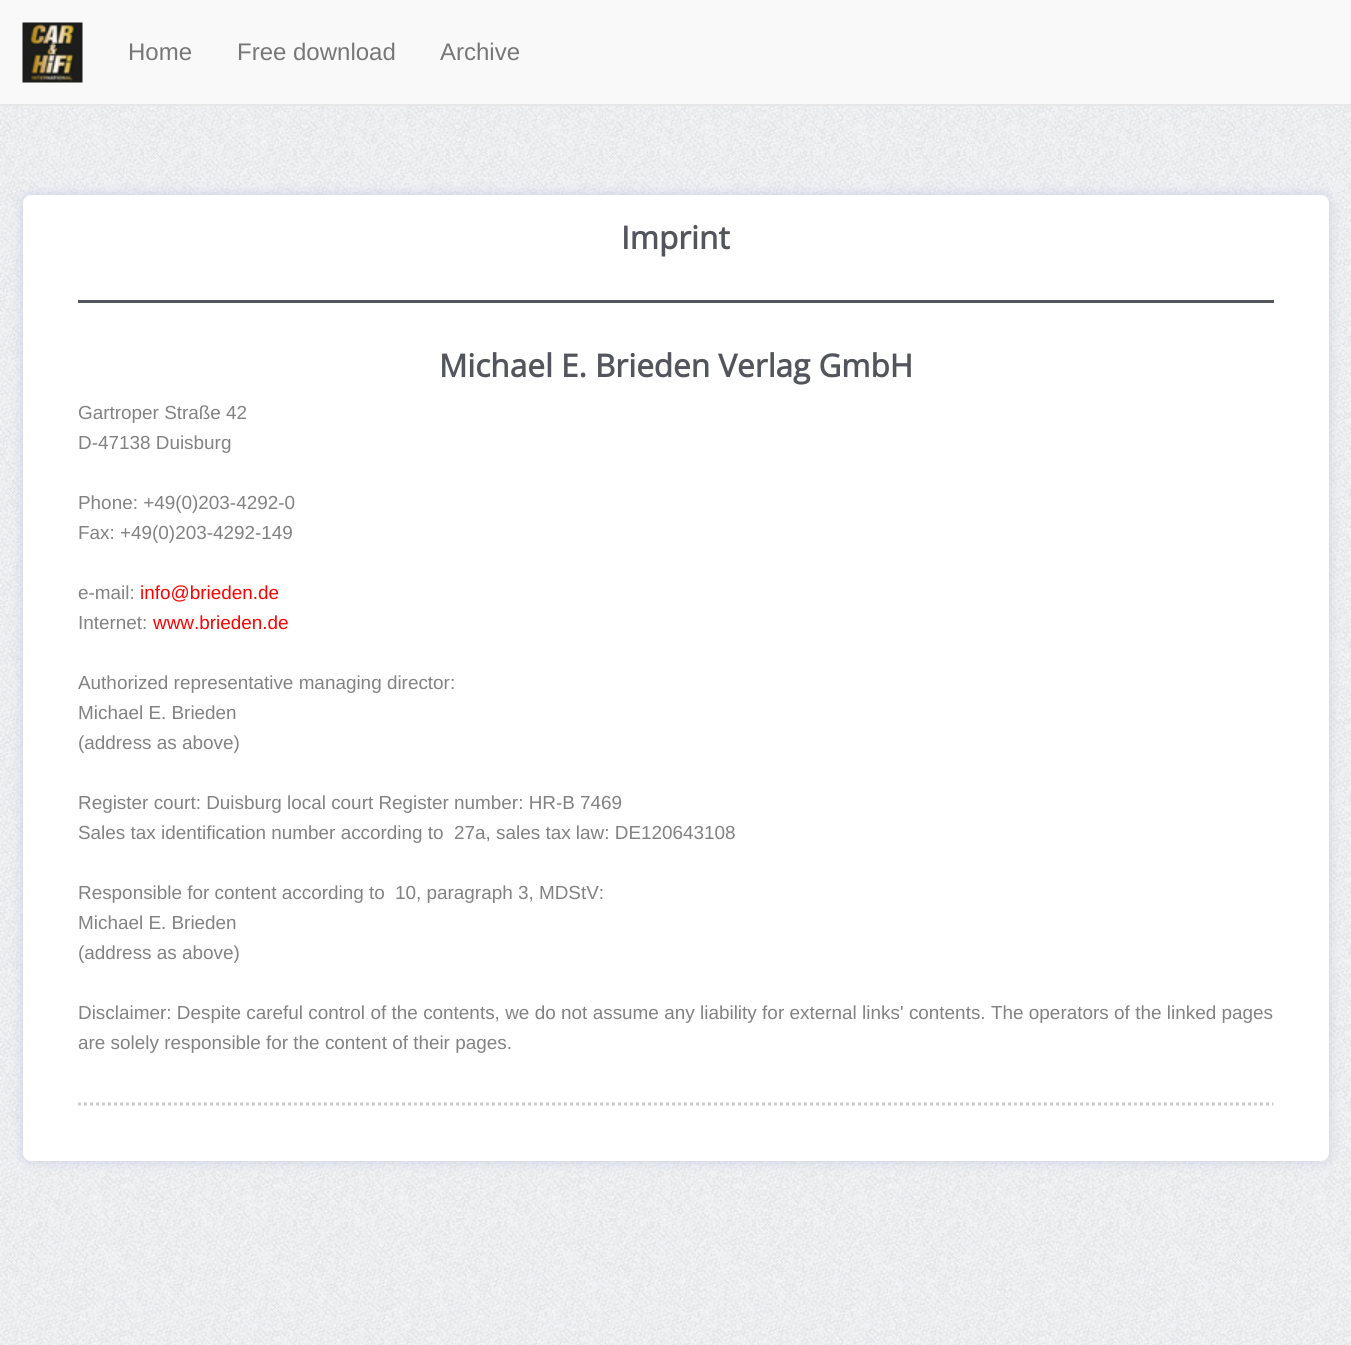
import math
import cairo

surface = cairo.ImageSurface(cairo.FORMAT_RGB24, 1351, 1345)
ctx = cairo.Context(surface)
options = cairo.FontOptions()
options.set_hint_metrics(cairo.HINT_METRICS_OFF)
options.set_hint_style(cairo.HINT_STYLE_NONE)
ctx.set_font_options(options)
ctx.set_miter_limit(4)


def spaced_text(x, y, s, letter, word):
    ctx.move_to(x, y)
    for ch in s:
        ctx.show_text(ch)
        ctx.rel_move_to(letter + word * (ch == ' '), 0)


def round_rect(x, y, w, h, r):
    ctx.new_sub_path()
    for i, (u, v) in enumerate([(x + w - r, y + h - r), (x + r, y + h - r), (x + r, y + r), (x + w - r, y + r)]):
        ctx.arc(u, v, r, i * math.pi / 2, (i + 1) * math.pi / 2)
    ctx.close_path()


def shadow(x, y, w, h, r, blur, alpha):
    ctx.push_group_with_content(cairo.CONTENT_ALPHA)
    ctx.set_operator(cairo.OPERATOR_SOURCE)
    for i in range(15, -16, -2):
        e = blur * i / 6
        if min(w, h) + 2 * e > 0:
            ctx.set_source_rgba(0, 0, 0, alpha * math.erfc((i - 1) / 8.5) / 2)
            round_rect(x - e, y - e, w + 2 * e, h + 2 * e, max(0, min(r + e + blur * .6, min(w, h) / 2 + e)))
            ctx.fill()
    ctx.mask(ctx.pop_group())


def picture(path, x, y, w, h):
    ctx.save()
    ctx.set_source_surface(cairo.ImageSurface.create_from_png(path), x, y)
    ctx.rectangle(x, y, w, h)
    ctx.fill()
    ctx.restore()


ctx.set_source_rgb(1, 1, 1)
ctx.paint()
picture("img1.png", 0, 106, 1351, 1239)
ctx.set_source_rgb(0.973, 0.973, 0.973)
ctx.rectangle(0, 0, 1351, 104)
ctx.fill()
ctx.set_source_rgb(0.906, 0.906, 0.906)
ctx.rectangle(0, 104, 1351, 2)
ctx.fill()
picture("img2.png", 22, 22, 61, 61)
ctx.select_font_face("Liberation Sans")
ctx.set_font_size(24)
ctx.set_source_rgb(0.467, 0.467, 0.467)
ctx.move_to(128, 60)
ctx.show_text("Home")
ctx.move_to(237, 60)
ctx.show_text("Free download")
ctx.move_to(440, 60)
ctx.show_text("Archive")
ctx.set_source_rgb(0.784, 0.812, 0.902)
shadow(23, 195, 1306, 966, 8, 6, 1)
ctx.set_source_rgb(1, 1, 1)
round_rect(28.5, 200.5, 1295, 955, 2.5)
ctx.fill_preserve()
ctx.set_line_width(11)
ctx.stroke()
ctx.select_font_face("Open Sans", cairo.FONT_SLANT_NORMAL, cairo.FONT_WEIGHT_BOLD)
ctx.set_font_size(31.5)
ctx.set_source_rgb(0.325, 0.333, 0.361)
ctx.move_to(621, 249)
ctx.show_text("Imprint")
ctx.new_path()
ctx.move_to(78, 1104)
ctx.line_to(1273.5, 1104)
ctx.set_source_rgb(0.8, 0.8, 0.8)
ctx.set_line_width(3)
ctx.set_dash([3, 3])
ctx.stroke()
ctx.set_source_rgb(0.325, 0.333, 0.361)
ctx.rectangle(78, 300, 1196, 3)
ctx.fill()
ctx.move_to(439, 377)
ctx.show_text("Michael E. Brieden Verlag GmbH")
ctx.select_font_face("Liberation Sans")
ctx.set_font_size(18.9)
ctx.set_source_rgb(0.51, 0.51, 0.51)
ctx.move_to(78, 419)
ctx.show_text("Gartroper Straße 42")
ctx.move_to(78, 449)
ctx.show_text("D-47138 Duisburg")
ctx.move_to(78, 509)
ctx.show_text("Phone: +49(0)203-4292-0")
ctx.move_to(78, 539)
ctx.show_text("Fax: +49(0)203-4292-149")
ctx.move_to(78, 599)
ctx.show_text("e-mail:")
ctx.set_source_rgb(1, 0, 0)
ctx.move_to(140, 599)
ctx.show_text("info@brieden.de")
ctx.set_source_rgb(0.51, 0.51, 0.51)
ctx.move_to(78, 629)
ctx.show_text("Internet:")
ctx.set_source_rgb(1, 0, 0)
ctx.move_to(153, 629)
ctx.show_text("www.brieden.de")
ctx.set_source_rgb(0.51, 0.51, 0.51)
ctx.move_to(78, 689)
ctx.show_text("Authorized representative managing director:")
ctx.move_to(78, 719)
ctx.show_text("Michael E. Brieden")
ctx.move_to(78, 749)
ctx.show_text("(address as above)")
ctx.move_to(78, 809)
ctx.show_text("Register court: Duisburg local court Register number: HR-B 7469")
ctx.move_to(78, 839)
ctx.show_text("Sales tax identification number according to")
ctx.move_to(454, 839)
ctx.show_text("27a, sales tax law: DE120643108")
ctx.move_to(78, 899)
ctx.show_text("Responsible for content according to")
ctx.move_to(395, 899)
ctx.show_text("10, paragraph 3, MDStV:")
ctx.move_to(78, 929)
ctx.show_text("Michael E. Brieden")
ctx.move_to(78, 959)
ctx.show_text("(address as above)")
spaced_text(78, 1019, "Disclaimer: Despite careful control of the contents, we do not assume any liability for external links' contents. The operators of the linked pages", 0, 0.1)
ctx.move_to(78, 1049)
ctx.show_text("are solely responsible for the content of their pages.")
surface.write_to_png("page.png")
